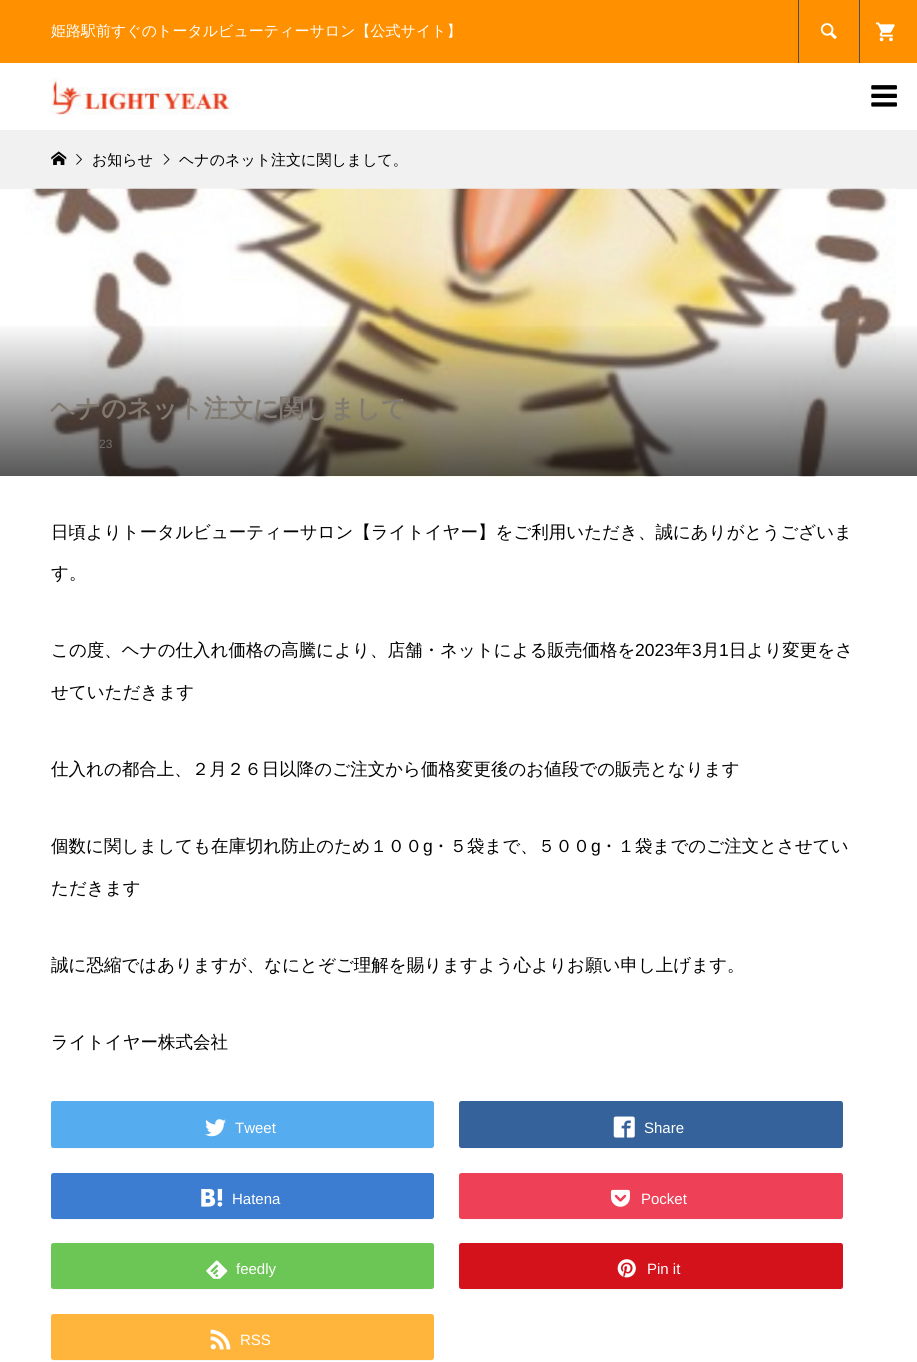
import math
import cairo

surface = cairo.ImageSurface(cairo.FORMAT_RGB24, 917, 1362)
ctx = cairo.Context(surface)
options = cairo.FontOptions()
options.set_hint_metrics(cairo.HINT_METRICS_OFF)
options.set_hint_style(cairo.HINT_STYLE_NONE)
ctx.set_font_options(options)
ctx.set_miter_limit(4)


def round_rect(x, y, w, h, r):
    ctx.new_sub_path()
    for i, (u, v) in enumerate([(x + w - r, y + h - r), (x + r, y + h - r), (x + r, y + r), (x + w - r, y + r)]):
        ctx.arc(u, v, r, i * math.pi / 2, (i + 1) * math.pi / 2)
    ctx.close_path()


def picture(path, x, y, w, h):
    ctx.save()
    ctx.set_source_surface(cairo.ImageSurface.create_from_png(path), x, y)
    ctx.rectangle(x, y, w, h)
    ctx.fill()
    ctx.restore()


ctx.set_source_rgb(1, 1, 1)
ctx.paint()
ctx.set_source_rgb(1, 0.565, 0)
ctx.rectangle(0, 0, 917, 63)
ctx.fill()
ctx.select_font_face("WenQuanYi Zen Hei Medium")
ctx.set_font_size(15)
ctx.set_source_rgb(1, 1, 1)
ctx.move_to(51, 36)
ctx.show_text("姫路駅前すぐのトータルビューティーサロン【公式サイト】")
ctx.set_source_rgb(0.302, 0.302, 0.302)
ctx.rectangle(798, 0, 1, 63)
ctx.fill()
picture("img1.png", 820, 23, 17, 16)
ctx.rectangle(859, 0, 1, 63)
ctx.fill()
picture("img2.png", 875, 22, 20, 20)
picture("img3.png", 51, 77, 181, 38)
picture("img4.png", 871, 85, 26, 22)
ctx.set_source_rgb(0.945, 0.945, 0.945)
ctx.rectangle(0, 130, 917, 59)
ctx.fill()
picture("img5.png", 51, 151, 16, 14)
picture("img6.png", 76, 154, 6, 11)
ctx.set_source_rgb(0, 0, 0)
ctx.move_to(92, 165)
ctx.show_text("お知らせ")
picture("img7.png", 163, 154, 7, 11)
ctx.move_to(179, 165)
ctx.show_text("ヘナのネット注文に関しまして。")
picture("img8.png", 25, 188, 871, 289)
gradient = cairo.LinearGradient(459, 321, 459, 476)
gradient.add_color_stop_rgba(0, 0, 0, 0, 0)
gradient.add_color_stop_rgba(1, 0, 0, 0, 0.66)
ctx.set_source(gradient)
ctx.rectangle(0, 326, 917, 150)
ctx.fill()
ctx.select_font_face("WenQuanYi Zen Hei", cairo.FONT_SLANT_NORMAL, cairo.FONT_WEIGHT_BOLD)
ctx.set_font_size(25)
ctx.set_source_rgb(0.506, 0.478, 0.443)
ctx.move_to(50, 417)
ctx.show_text("ヘナのネット注文に関しまして")
ctx.select_font_face("Liberation Sans")
ctx.set_font_size(12)
ctx.set_source_rgb(0.443, 0.435, 0.427)
ctx.move_to(99, 448)
ctx.show_text("23")
ctx.select_font_face("WenQuanYi Zen Hei Medium")
ctx.set_font_size(17.5)
ctx.set_source_rgb(0, 0, 0)
ctx.move_to(51, 538)
ctx.show_text("日頃よりトータルビューティーサロン【ライトイヤー】をご利用いただき、誠にありがとうございま")
ctx.move_to(51, 579)
ctx.show_text("す。")
ctx.move_to(51, 656)
ctx.show_text("この度、ヘナの仕入れ価格の高騰により、店舗・ネットによる販売価格を")
ctx.select_font_face("Liberation Sans")
ctx.move_to(635, 656)
ctx.show_text("2023")
ctx.select_font_face("WenQuanYi Zen Hei Medium")
ctx.move_to(674, 656)
ctx.show_text("年")
ctx.select_font_face("Liberation Sans")
ctx.move_to(692, 656)
ctx.show_text("3")
ctx.select_font_face("WenQuanYi Zen Hei Medium")
ctx.move_to(702, 656)
ctx.show_text("月")
ctx.select_font_face("Liberation Sans")
ctx.move_to(719, 656)
ctx.show_text("1")
ctx.select_font_face("WenQuanYi Zen Hei Medium")
ctx.move_to(729, 656)
ctx.show_text("日より変更をさ")
ctx.move_to(51, 698)
ctx.show_text("せていただきます")
ctx.move_to(51, 775)
ctx.show_text("仕入れの都合上、２月２６日以降のご注文から価格変更後のお値段での販売となります")
ctx.move_to(51, 852)
ctx.show_text("個数に関しましても在庫切れ防止のため１００")
ctx.select_font_face("Liberation Sans")
ctx.move_to(423, 852)
ctx.show_text("g")
ctx.select_font_face("WenQuanYi Zen Hei Medium")
ctx.move_to(432, 852)
ctx.show_text("・５袋まで、５００")
ctx.select_font_face("Liberation Sans")
ctx.move_to(591, 852)
ctx.show_text("g")
ctx.select_font_face("WenQuanYi Zen Hei Medium")
ctx.move_to(600, 852)
ctx.show_text("・１袋までのご注文とさせてい")
ctx.move_to(51, 894)
ctx.show_text("ただきます")
ctx.move_to(51, 971)
ctx.show_text("誠に恐縮ではありますが、なにとぞご理解を賜りますよう心よりお願い申し上げます。")
ctx.move_to(51, 1048)
ctx.show_text("ライトイヤー株式会社")
ctx.set_source_rgb(0.969, 0.969, 0.969)
ctx.new_path()
ctx.move_to(51, 1104)
ctx.line_to(51, 1146)
ctx.curve_to(51, 1148, 52, 1149, 54, 1149)
ctx.line_to(432, 1149)
ctx.curve_to(433, 1149, 434, 1148, 434, 1146)
ctx.line_to(434, 1104)
ctx.line_to(434, 1145)
ctx.curve_to(434, 1146, 433, 1148, 431, 1148)
ctx.line_to(54, 1148)
ctx.curve_to(52, 1148, 51, 1146, 51, 1145)
ctx.close_path()
ctx.fill()
ctx.set_source_rgb(0.333, 0.675, 0.933)
round_rect(51, 1101, 383, 47, 2.5)
ctx.fill()
picture("img9.png", 205, 1119, 21, 18)
ctx.select_font_face("Liberation Sans")
ctx.set_font_size(15)
ctx.set_source_rgb(1, 1, 1)
ctx.move_to(235, 1133)
ctx.show_text("Tweet")
ctx.set_source_rgb(0.969, 0.969, 0.969)
ctx.new_path()
ctx.move_to(459, 1146)
ctx.curve_to(459, 1148, 460, 1149, 462, 1149)
ctx.line_to(840, 1149)
ctx.curve_to(842, 1149, 843, 1148, 843, 1146)
ctx.line_to(843, 1106)
ctx.line_to(842, 1104)
ctx.line_to(842, 1145)
ctx.curve_to(842, 1146, 841, 1148, 840, 1148)
ctx.line_to(461, 1148)
ctx.curve_to(460, 1148, 459, 1147, 459, 1146)
ctx.close_path()
ctx.fill()
ctx.set_source_rgb(0.208, 0.384, 0.604)
round_rect(459, 1101, 384, 47, 2.5)
ctx.fill()
picture("img10.png", 613, 1116, 22, 22)
ctx.set_source_rgb(1, 1, 1)
ctx.move_to(644, 1133)
ctx.show_text("Share")
ctx.set_source_rgb(0.969, 0.969, 0.969)
ctx.new_path()
ctx.move_to(51, 1175)
ctx.line_to(51, 1218)
ctx.curve_to(51, 1219, 52, 1220, 54, 1220)
ctx.line_to(432, 1220)
ctx.curve_to(433, 1220, 434, 1219, 434, 1218)
ctx.line_to(434, 1175)
ctx.line_to(434, 1216)
ctx.curve_to(434, 1218, 433, 1219, 431, 1219)
ctx.line_to(54, 1219)
ctx.curve_to(52, 1219, 51, 1218, 51, 1216)
ctx.close_path()
ctx.fill()
ctx.set_source_rgb(0.235, 0.49, 0.82)
round_rect(51, 1173, 383, 46, 2.5)
ctx.fill()
picture("img11.png", 201, 1188, 22, 19)
ctx.set_source_rgb(1, 1, 1)
ctx.move_to(232, 1204)
ctx.show_text("Hatena")
ctx.set_source_rgb(0.969, 0.969, 0.969)
ctx.new_path()
ctx.move_to(459, 1217)
ctx.line_to(459, 1218)
ctx.curve_to(459, 1219, 460, 1220, 462, 1220)
ctx.line_to(840, 1220)
ctx.curve_to(842, 1220, 843, 1219, 843, 1218)
ctx.line_to(843, 1176)
ctx.line_to(842, 1175)
ctx.line_to(842, 1216)
ctx.curve_to(842, 1218, 841, 1219, 840, 1219)
ctx.line_to(461, 1219)
ctx.curve_to(460, 1219, 459, 1218, 459, 1217)
ctx.close_path()
ctx.fill()
ctx.set_source_rgb(0.933, 0.251, 0.337)
round_rect(459, 1173, 384, 46, 2.5)
ctx.fill()
picture("img12.png", 610, 1189, 20, 18)
ctx.set_source_rgb(1, 1, 1)
ctx.move_to(641, 1204)
ctx.show_text("Pocket")
ctx.set_source_rgb(0.969, 0.969, 0.969)
ctx.new_path()
ctx.move_to(51, 1245)
ctx.line_to(51, 1288)
ctx.curve_to(51, 1289, 52, 1290, 54, 1290)
ctx.line_to(432, 1290)
ctx.curve_to(433, 1290, 434, 1289, 434, 1288)
ctx.line_to(434, 1245)
ctx.line_to(434, 1286)
ctx.curve_to(434, 1288, 433, 1289, 431, 1289)
ctx.line_to(54, 1289)
ctx.curve_to(52, 1289, 51, 1288, 51, 1286)
ctx.close_path()
ctx.fill()
ctx.set_source_rgb(0.424, 0.776, 0.333)
round_rect(51, 1243, 383, 46, 2.5)
ctx.fill()
picture("img13.png", 206, 1260, 22, 19)
ctx.set_source_rgb(1, 1, 1)
ctx.move_to(236, 1274)
ctx.show_text("feedly")
ctx.set_source_rgb(0.969, 0.969, 0.969)
ctx.new_path()
ctx.move_to(459, 1287)
ctx.line_to(459, 1288)
ctx.curve_to(459, 1289, 460, 1290, 462, 1290)
ctx.line_to(840, 1290)
ctx.curve_to(842, 1290, 843, 1289, 843, 1288)
ctx.line_to(843, 1246)
ctx.line_to(842, 1245)
ctx.line_to(842, 1286)
ctx.curve_to(842, 1288, 841, 1289, 840, 1289)
ctx.line_to(461, 1289)
ctx.curve_to(460, 1289, 459, 1288, 459, 1287)
ctx.close_path()
ctx.fill()
ctx.set_source_rgb(0.831, 0.071, 0.11)
round_rect(459, 1243, 384, 46, 2.5)
ctx.fill()
picture("img14.png", 617, 1259, 19, 19)
ctx.set_source_rgb(1, 1, 1)
ctx.move_to(647, 1274)
ctx.show_text("Pin it")
ctx.set_source_rgb(0.969, 0.969, 0.969)
ctx.new_path()
ctx.move_to(51, 1316)
ctx.line_to(51, 1358)
ctx.curve_to(51, 1360, 52, 1361, 54, 1361)
ctx.line_to(432, 1361)
ctx.curve_to(433, 1361, 434, 1360, 434, 1358)
ctx.line_to(434, 1316)
ctx.line_to(434, 1358)
ctx.curve_to(434, 1359, 433, 1360, 431, 1360)
ctx.line_to(54, 1360)
ctx.curve_to(52, 1360, 51, 1359, 51, 1358)
ctx.close_path()
ctx.fill()
ctx.set_source_rgb(1, 0.71, 0.235)
round_rect(51, 1314, 383, 46, 2.5)
ctx.fill()
picture("img15.png", 210, 1329, 21, 21)
ctx.set_source_rgb(1, 1, 1)
ctx.move_to(240, 1345)
ctx.show_text("RSS")
surface.write_to_png("page.png")
